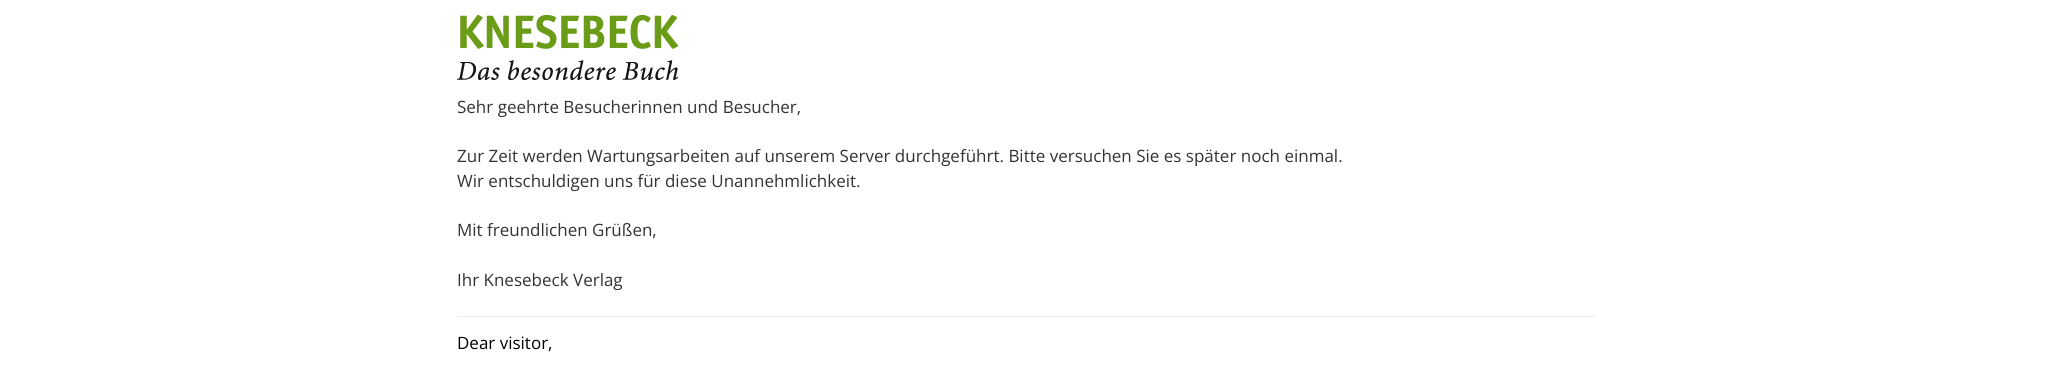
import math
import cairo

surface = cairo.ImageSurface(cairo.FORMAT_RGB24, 2053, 375)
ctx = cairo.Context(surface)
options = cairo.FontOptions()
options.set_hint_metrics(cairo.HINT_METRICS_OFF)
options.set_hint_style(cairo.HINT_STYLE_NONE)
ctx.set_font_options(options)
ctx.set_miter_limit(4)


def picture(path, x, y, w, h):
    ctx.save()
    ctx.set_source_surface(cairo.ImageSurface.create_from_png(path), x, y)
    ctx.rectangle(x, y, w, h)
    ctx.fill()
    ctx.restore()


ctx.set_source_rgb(1, 1, 1)
ctx.paint()
picture("img1.png", 457, 15, 221, 65)
ctx.select_font_face("Open Sans")
ctx.set_font_size(17)
ctx.set_source_rgb(0.2, 0.2, 0.2)
ctx.move_to(457, 113)
ctx.show_text("Sehr geehrte Besucherinnen und Besucher,")
ctx.move_to(457, 162)
ctx.show_text("Zur Zeit werden Wartungsarbeiten auf unserem Server durchgeführt. Bitte versuchen Sie es später noch einmal.")
ctx.move_to(457, 187)
ctx.show_text("Wir entschuldigen uns für diese Unannehmlichkeit.")
ctx.move_to(457, 236)
ctx.show_text("Mit freundlichen Grüßen,")
ctx.move_to(457, 286)
ctx.show_text("Ihr Knesebeck Verlag")
ctx.set_source_rgb(0.933, 0.933, 0.933)
ctx.rectangle(457, 316, 1140, 1)
ctx.fill()
ctx.set_source_rgb(0, 0, 0)
ctx.move_to(457, 349)
ctx.show_text("Dear visitor,")
surface.write_to_png("page.png")
